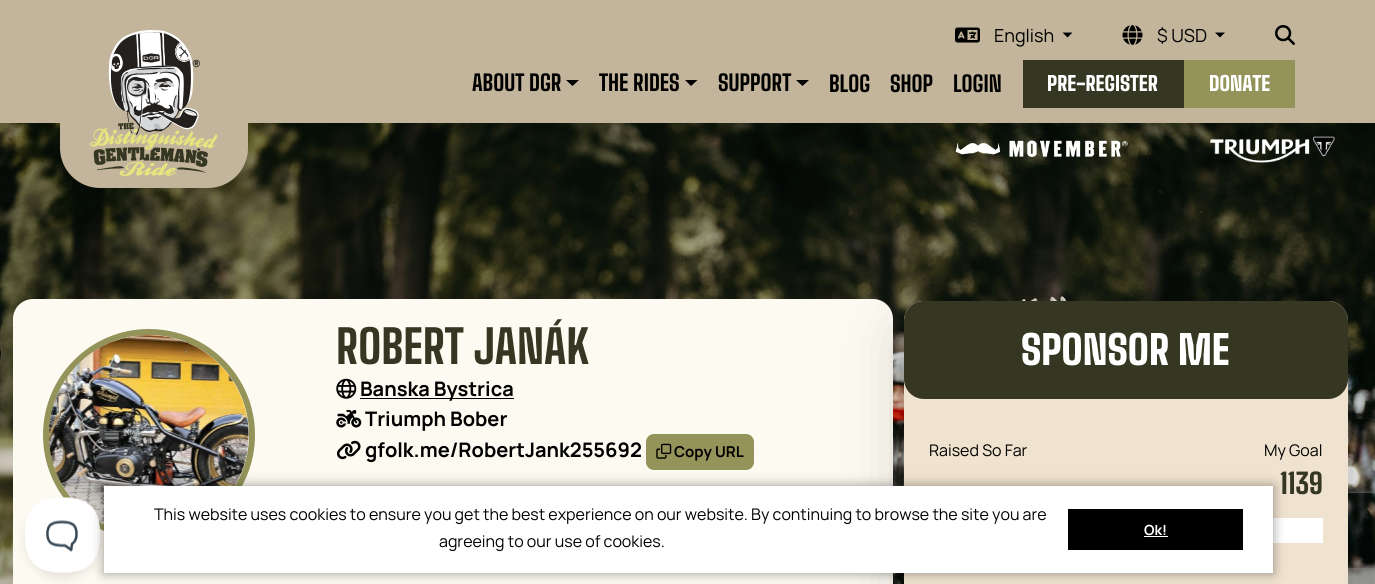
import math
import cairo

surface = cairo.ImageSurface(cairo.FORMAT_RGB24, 1375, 584)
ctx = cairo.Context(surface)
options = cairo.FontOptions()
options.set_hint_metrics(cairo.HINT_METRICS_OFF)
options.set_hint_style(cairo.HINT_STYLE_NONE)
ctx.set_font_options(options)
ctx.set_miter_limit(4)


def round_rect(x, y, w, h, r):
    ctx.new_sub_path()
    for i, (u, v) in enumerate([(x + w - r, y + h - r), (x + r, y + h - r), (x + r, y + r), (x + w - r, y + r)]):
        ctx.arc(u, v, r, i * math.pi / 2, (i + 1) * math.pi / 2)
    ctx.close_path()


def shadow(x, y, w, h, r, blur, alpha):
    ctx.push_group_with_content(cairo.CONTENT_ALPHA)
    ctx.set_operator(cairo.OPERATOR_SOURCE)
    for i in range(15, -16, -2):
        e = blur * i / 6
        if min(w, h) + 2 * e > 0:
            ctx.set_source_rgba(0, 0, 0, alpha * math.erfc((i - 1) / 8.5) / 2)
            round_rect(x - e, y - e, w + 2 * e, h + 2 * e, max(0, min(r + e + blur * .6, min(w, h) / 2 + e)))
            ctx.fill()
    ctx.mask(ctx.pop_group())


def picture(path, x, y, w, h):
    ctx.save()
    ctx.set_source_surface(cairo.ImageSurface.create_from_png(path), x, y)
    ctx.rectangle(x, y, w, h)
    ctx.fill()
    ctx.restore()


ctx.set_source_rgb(1, 1, 1)
ctx.paint()
picture("img1.png", 0, 123, 1375, 461)
ctx.set_source_rgb(0.761, 0.71, 0.608)
ctx.rectangle(0, 0, 1375, 123)
ctx.fill()
ctx.new_path()
ctx.move_to(60, 0)
ctx.line_to(248, 0)
ctx.line_to(248, 148)
ctx.curve_to(248, 170, 230, 188, 208, 188)
ctx.line_to(100, 188)
ctx.curve_to(78, 188, 60, 170, 60, 148)
ctx.close_path()
ctx.fill()
picture("img2.png", 90, 30, 128, 146)
picture("img3.png", 955, 27, 25, 16)
ctx.select_font_face("Manrope")
ctx.set_font_size(18)
ctx.set_source_rgb(0, 0, 0)
ctx.move_to(994, 42)
ctx.show_text("English")
ctx.new_path()
ctx.move_to(1062.5, 32.5)
ctx.line_to(1072.5, 32.5)
ctx.line_to(1067.5, 37.5)
ctx.close_path()
ctx.fill()
picture("img4.png", 1122, 25, 21, 20)
ctx.move_to(1157, 42)
ctx.show_text("$ USD")
ctx.new_path()
ctx.move_to(1215, 32.5)
ctx.line_to(1225, 32.5)
ctx.line_to(1220, 37.5)
ctx.close_path()
ctx.fill()
picture("img5.png", 1275, 25, 20, 20)
ctx.select_font_face("Big Shoulders Text ExtraBold")
ctx.set_font_size(22)
ctx.move_to(472, 91)
ctx.show_text("ABOUT DGR")
ctx.new_path()
ctx.move_to(566, 80)
ctx.line_to(579, 80)
ctx.line_to(572.5, 86)
ctx.close_path()
ctx.fill()
ctx.move_to(599, 91)
ctx.show_text("THE RIDES")
ctx.new_path()
ctx.move_to(685, 80)
ctx.line_to(697.5, 80)
ctx.line_to(691, 86)
ctx.close_path()
ctx.fill()
ctx.move_to(718, 91)
ctx.show_text("SUPPORT")
ctx.new_path()
ctx.move_to(796, 80)
ctx.line_to(809, 80)
ctx.line_to(802.5, 86)
ctx.close_path()
ctx.fill()
ctx.move_to(829, 92)
ctx.show_text("BLOG")
ctx.move_to(890, 92)
ctx.show_text("SHOP")
ctx.move_to(953, 92)
ctx.show_text("LOGIN")
ctx.set_source_rgb(0.208, 0.216, 0.133)
ctx.rectangle(1023, 60, 161, 48)
ctx.fill()
ctx.select_font_face("Big Shoulders Text Black")
ctx.set_font_size(20)
ctx.set_source_rgb(1, 1, 1)
ctx.move_to(1047, 91)
ctx.show_text("PRE-REGISTER")
ctx.set_source_rgb(0.576, 0.576, 0.353)
ctx.rectangle(1184, 60, 111, 48)
ctx.fill()
ctx.set_source_rgb(1, 1, 1)
ctx.move_to(1209, 91)
ctx.show_text("DONATE")
picture("img6.png", 955, 140, 173, 17)
picture("img7.png", 1210, 136, 125, 27)
ctx.set_source_rgb(0.992, 0.98, 0.945)
round_rect(13, 299, 880, 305, 20)
ctx.fill()
ctx.arc(149, 435, 103, 0, 2 * math.pi)
ctx.set_source_rgb(0.576, 0.576, 0.353)
ctx.set_line_width(6)
ctx.stroke()
picture("img8.png", 49, 335, 200, 190)
ctx.select_font_face("Big Shoulders Text ExtraBold")
ctx.set_font_size(46)
ctx.set_source_rgb(0.208, 0.216, 0.133)
ctx.move_to(336, 364)
ctx.show_text("ROBERT JANÁK")
picture("img9.png", 336, 378, 21, 21)
ctx.set_source_rgb(0, 0, 0)
ctx.rectangle(360, 398, 154, 1)
ctx.fill()
ctx.select_font_face("Manrope", cairo.FONT_SLANT_NORMAL, cairo.FONT_WEIGHT_BOLD)
ctx.set_font_size(20)
ctx.move_to(360, 396)
ctx.show_text("Banska Bystrica")
picture("img10.png", 336, 410, 26, 18)
ctx.move_to(365, 426)
ctx.show_text("Triumph Bober")
picture("img11.png", 336, 440, 25, 20)
ctx.move_to(365, 457)
ctx.show_text("gfolk.me/RobertJank255692")
ctx.set_source_rgb(0.576, 0.576, 0.353)
round_rect(646, 434, 108, 36, 8)
ctx.fill()
picture("img12.png", 656, 443, 16, 16)
ctx.set_font_size(15)
ctx.set_source_rgb(0, 0, 0)
ctx.move_to(674, 457)
ctx.show_text("Copy URL")
ctx.set_source_rgb(0, 0, 0)
shadow(904, 321, 444, 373, 20, 30, 0.18)
ctx.save()
ctx.set_fill_rule(cairo.FILL_RULE_EVEN_ODD)
ctx.new_path()
ctx.move_to(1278, 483)
ctx.line_to(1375, 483)
ctx.line_to(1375, 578)
ctx.line_to(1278, 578)
ctx.close_path()
ctx.move_to(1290.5, 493)
ctx.line_to(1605.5, 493)
ctx.curve_to(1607, 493, 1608, 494, 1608, 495.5)
ctx.line_to(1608, 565.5)
ctx.curve_to(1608, 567, 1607, 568, 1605.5, 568)
ctx.line_to(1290.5, 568)
ctx.curve_to(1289, 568, 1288, 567, 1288, 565.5)
ctx.line_to(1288, 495.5)
ctx.curve_to(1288, 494, 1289, 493, 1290.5, 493)
ctx.close_path()
ctx.clip()
ctx.set_source_rgb(0.502, 0.502, 0.502)
shadow(1288, 493, 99, 75, 2.5, 3, 1)
ctx.restore()
ctx.set_source_rgb(0.937, 0.886, 0.808)
round_rect(904, 301, 444, 254, 20)
ctx.fill()
ctx.set_source_rgb(0.208, 0.216, 0.133)
round_rect(904, 301, 444, 98, 20)
ctx.fill()
ctx.select_font_face("Big Shoulders Text Black")
ctx.set_font_size(40)
ctx.set_source_rgb(1, 1, 1)
ctx.move_to(1021, 365)
ctx.show_text("SPONSOR ME")
ctx.set_source_rgb(0.937, 0.886, 0.808)
ctx.rectangle(904, 535, 444, 49)
ctx.fill()
ctx.select_font_face("Manrope")
ctx.set_font_size(16)
ctx.set_source_rgb(0, 0, 0)
ctx.move_to(929, 456)
ctx.show_text("Raised So Far")
ctx.move_to(1264, 456)
ctx.show_text("My Goal")
ctx.select_font_face("Big Shoulders Text ExtraBold")
ctx.set_font_size(28)
ctx.set_source_rgb(0.208, 0.216, 0.133)
ctx.move_to(1280, 494)
ctx.show_text("1139")
ctx.set_source_rgb(1, 1, 1)
ctx.rectangle(1273, 518, 50, 25)
ctx.fill()
ctx.set_source_rgb(0, 0, 0)
shadow(25, 503, 75, 75, 37.5, 4.5, 0.1)
picture("img13.png", 25, 497, 75, 76)
shadow(104, 486, 1169, 87, 0, 6, 0.4)
ctx.set_source_rgb(1, 1, 1)
ctx.rectangle(104, 486, 1169, 87)
ctx.fill()
ctx.select_font_face("Manrope")
ctx.set_font_size(16)
ctx.set_source_rgb(0, 0, 0)
ctx.move_to(154, 520)
ctx.show_text("This website uses cookies to ensure you get the best experience on our website. By continuing to browse the site you are")
ctx.move_to(439, 547)
ctx.show_text("agreeing to our use of cookies.")
ctx.rectangle(1068, 509, 175, 41)
ctx.fill()
ctx.select_font_face("Manrope", cairo.FONT_SLANT_NORMAL, cairo.FONT_WEIGHT_BOLD)
ctx.set_font_size(14)
ctx.set_source_rgb(1, 1, 1)
ctx.move_to(1144, 535)
ctx.show_text("Ok!")
ctx.rectangle(1144, 536, 24, 1)
ctx.fill()
surface.write_to_png("page.png")
